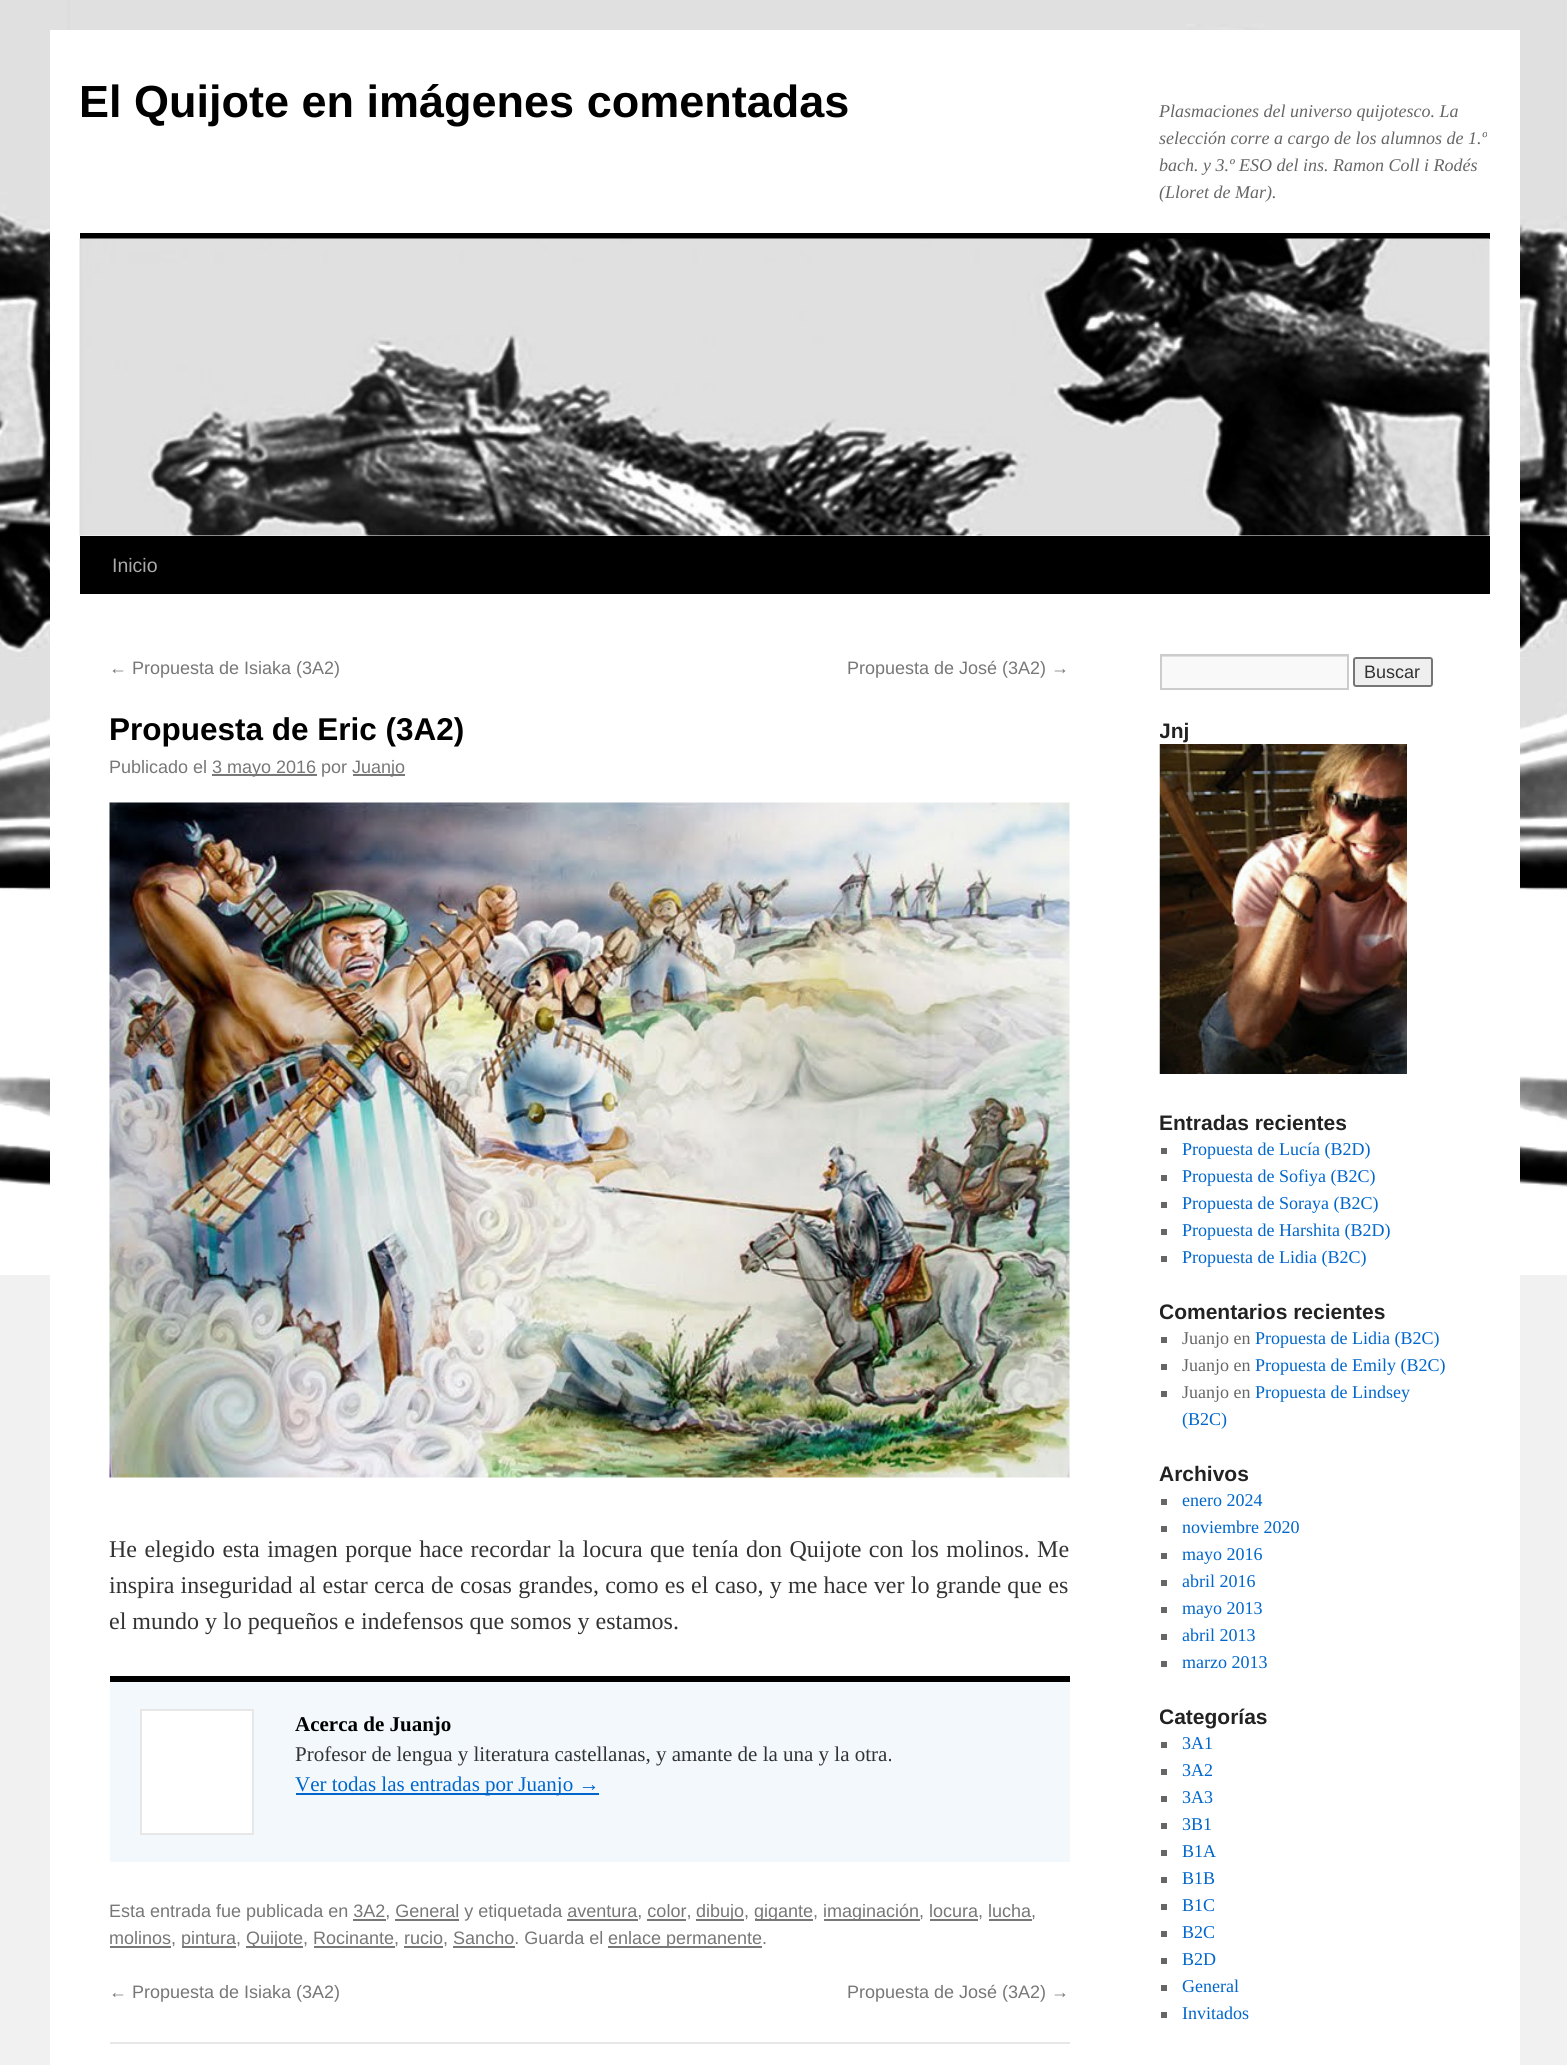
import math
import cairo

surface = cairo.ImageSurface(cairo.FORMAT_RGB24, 1567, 2065)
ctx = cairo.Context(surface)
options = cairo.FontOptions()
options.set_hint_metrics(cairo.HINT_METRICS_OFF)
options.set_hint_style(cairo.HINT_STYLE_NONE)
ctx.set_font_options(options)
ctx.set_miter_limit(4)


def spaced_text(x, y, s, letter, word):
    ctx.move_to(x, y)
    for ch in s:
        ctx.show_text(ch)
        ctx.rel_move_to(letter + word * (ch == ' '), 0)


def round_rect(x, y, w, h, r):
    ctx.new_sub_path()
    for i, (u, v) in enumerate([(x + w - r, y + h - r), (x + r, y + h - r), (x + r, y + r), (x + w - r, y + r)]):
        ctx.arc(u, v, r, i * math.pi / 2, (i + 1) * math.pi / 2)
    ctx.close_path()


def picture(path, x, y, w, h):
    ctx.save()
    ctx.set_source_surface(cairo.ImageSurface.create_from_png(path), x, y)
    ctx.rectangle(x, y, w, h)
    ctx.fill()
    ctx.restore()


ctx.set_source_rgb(0.945, 0.945, 0.945)
ctx.paint()
picture("img1.png", 0, 0, 1567, 1275)
ctx.set_source_rgb(1, 1, 1)
ctx.rectangle(50, 30, 1470, 2035)
ctx.fill()
ctx.select_font_face("Liberation Sans", cairo.FONT_SLANT_NORMAL, cairo.FONT_WEIGHT_BOLD)
ctx.set_font_size(45)
ctx.set_source_rgb(0, 0, 0)
ctx.move_to(79, 117)
ctx.show_text("El Quijote en imágenes comentadas")
ctx.select_font_face("Liberation Serif", cairo.FONT_SLANT_ITALIC)
ctx.set_font_size(18)
ctx.set_source_rgb(0.4, 0.4, 0.4)
ctx.move_to(1159, 117)
ctx.show_text("Plasmaciones del universo quijotesco. La")
ctx.move_to(1159, 144)
ctx.show_text("selección corre a cargo de los alumnos de 1.º")
ctx.move_to(1159, 171)
ctx.show_text("bach. y 3.º ESO del ins. Ramon Coll i Rodés")
ctx.move_to(1159, 198)
ctx.show_text("(Lloret de Mar).")
ctx.set_source_rgb(0, 0, 0)
ctx.rectangle(80, 233, 1410, 6)
ctx.fill()
ctx.rectangle(80, 536, 1410, 58)
ctx.fill()
picture("img2.png", 79, 238, 1411, 298)
ctx.select_font_face("Liberation Sans")
ctx.set_font_size(19.5)
ctx.set_source_rgb(0.667, 0.667, 0.667)
ctx.move_to(112, 572)
ctx.show_text("Inicio")
ctx.set_font_size(18)
ctx.set_source_rgb(0.467, 0.467, 0.467)
ctx.move_to(109, 674)
ctx.show_text("← Propuesta de Isiaka (3A2)")
ctx.move_to(847, 674)
ctx.show_text("Propuesta de José (3A2) →")
ctx.select_font_face("Liberation Sans", cairo.FONT_SLANT_NORMAL, cairo.FONT_WEIGHT_BOLD)
ctx.set_font_size(31.5)
ctx.set_source_rgb(0, 0, 0)
ctx.move_to(109, 740)
ctx.show_text("Propuesta de Eric (3A2)")
ctx.select_font_face("Liberation Sans")
ctx.set_font_size(18)
ctx.set_source_rgb(0.467, 0.467, 0.467)
ctx.move_to(109, 773)
ctx.show_text("Publicado el")
ctx.rectangle(212, 774, 105, 2)
ctx.fill()
ctx.move_to(212, 773)
ctx.show_text("3 mayo 2016 por")
ctx.rectangle(353, 774, 52, 2)
ctx.fill()
ctx.move_to(352, 773)
ctx.show_text("Juanjo")
picture("img3.png", 109, 802, 961, 676)
ctx.select_font_face("Liberation Serif")
ctx.set_font_size(24)
ctx.set_source_rgb(0.2, 0.2, 0.2)
spaced_text(109, 1557, "He elegido esta imagen porque hace recordar la locura que tenía don Quijote con los molinos. Me", 0, 1.4)
spaced_text(109, 1593, "inspira inseguridad al estar cerca de cosas grandes, como es el caso, y me hace ver lo grande que es", 0, 0.3)
ctx.move_to(109, 1629)
ctx.show_text("el mundo y lo pequeños e indefensos que somos y estamos.")
ctx.set_source_rgb(0.949, 0.969, 0.988)
ctx.rectangle(110, 1682, 960, 180)
ctx.fill()
ctx.set_source_rgb(0, 0, 0)
ctx.rectangle(110, 1676, 960, 6)
ctx.fill()
ctx.set_source_rgb(1, 1, 1)
ctx.rectangle(141, 1710, 112, 124)
ctx.fill_preserve()
ctx.set_source_rgb(0.906, 0.906, 0.906)
ctx.stroke()
ctx.select_font_face("Liberation Serif", cairo.FONT_SLANT_NORMAL, cairo.FONT_WEIGHT_BOLD)
ctx.set_font_size(21)
ctx.set_source_rgb(0, 0, 0)
ctx.move_to(295, 1731)
ctx.show_text("Acerca de Juanjo")
ctx.select_font_face("Liberation Serif")
ctx.set_source_rgb(0.2, 0.2, 0.2)
ctx.move_to(295, 1761)
ctx.show_text("Profesor de lengua y literatura castellanas, y amante de la una y la otra.")
ctx.set_source_rgb(0, 0.4, 0.8)
ctx.rectangle(296, 1793, 303, 2)
ctx.fill()
ctx.move_to(295, 1791)
ctx.show_text("Ver todas las entradas por Juanjo →")
ctx.select_font_face("Liberation Sans")
ctx.set_font_size(18)
ctx.set_source_rgb(0.467, 0.467, 0.467)
ctx.move_to(109, 1917)
ctx.show_text("Esta entrada fue publicada en 3A2, General y etiquetada aventura, color,")
ctx.rectangle(696, 1919, 48, 2)
ctx.fill()
ctx.move_to(696, 1917)
ctx.show_text("dibujo,")
ctx.rectangle(755, 1919, 58, 2)
ctx.fill()
ctx.move_to(754, 1917)
ctx.show_text("gigante,")
ctx.rectangle(824, 1919, 96, 2)
ctx.fill()
ctx.move_to(823, 1917)
ctx.show_text("imaginación, locura, lucha,")
ctx.rectangle(353, 1919, 33, 2)
ctx.fill()
ctx.rectangle(395, 1919, 64, 2)
ctx.fill()
ctx.rectangle(567, 1919, 71, 2)
ctx.fill()
ctx.rectangle(647, 1919, 39, 2)
ctx.fill()
ctx.rectangle(930, 1919, 48, 2)
ctx.fill()
ctx.rectangle(989, 1919, 43, 2)
ctx.fill()
ctx.rectangle(110, 1946, 61, 2)
ctx.fill()
ctx.move_to(109, 1944)
ctx.show_text("molinos,")
ctx.rectangle(182, 1946, 54, 2)
ctx.fill()
ctx.move_to(181, 1944)
ctx.show_text("pintura,")
ctx.rectangle(246, 1946, 57, 2)
ctx.fill()
ctx.move_to(246, 1944)
ctx.show_text("Quijote, Rocinante, rucio, Sancho. Guarda el")
ctx.rectangle(608, 1946, 154, 2)
ctx.fill()
ctx.move_to(608, 1944)
ctx.show_text("enlace permanente.")
ctx.rectangle(314, 1946, 81, 2)
ctx.fill()
ctx.rectangle(404, 1946, 39, 2)
ctx.fill()
ctx.rectangle(453, 1946, 62, 2)
ctx.fill()
ctx.move_to(109, 1998)
ctx.show_text("← Propuesta de Isiaka (3A2)")
ctx.move_to(847, 1998)
ctx.show_text("Propuesta de José (3A2) →")
ctx.set_source_rgb(0.906, 0.906, 0.906)
ctx.rectangle(110, 2042, 960, 2)
ctx.fill()
ctx.set_source_rgb(0.976, 0.976, 0.976)
ctx.rectangle(1162, 657, 185, 31)
ctx.fill()
ctx.save()
ctx.rectangle(1161, 656, 186, 33)
ctx.clip()
ctx.set_source_rgb(0.878, 0.878, 0.878)
ctx.set_fill_rule(cairo.FILL_RULE_EVEN_ODD)
ctx.new_path()
ctx.move_to(1012, 507)
ctx.line_to(1496, 507)
ctx.line_to(1496, 837)
ctx.line_to(1012, 837)
ctx.close_path()
ctx.move_to(1162, 657)
ctx.line_to(1348, 657)
ctx.line_to(1348, 690)
ctx.line_to(1162, 690)
ctx.close_path()
ctx.fill()
ctx.restore()
ctx.rectangle(1161, 655, 187, 34)
ctx.set_source_rgb(0.8, 0.8, 0.8)
ctx.stroke()
ctx.set_source_rgb(0.937, 0.937, 0.937)
round_rect(1354, 658, 78, 28, 2)
ctx.fill_preserve()
ctx.set_source_rgb(0.463, 0.463, 0.463)
ctx.stroke()
ctx.set_source_rgb(0.2, 0.2, 0.2)
ctx.move_to(1364, 678)
ctx.show_text("Buscar")
ctx.save()
ctx.rectangle(1160, 654, 330, 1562)
ctx.clip()
ctx.select_font_face("Liberation Sans", cairo.FONT_SLANT_NORMAL, cairo.FONT_WEIGHT_BOLD)
ctx.set_font_size(21)
ctx.set_source_rgb(0.133, 0.133, 0.133)
ctx.move_to(1159, 738)
ctx.show_text("Jnj")
ctx.restore()
picture("img4.png", 1159, 744, 248, 330)
ctx.select_font_face("Liberation Sans", cairo.FONT_SLANT_NORMAL, cairo.FONT_WEIGHT_BOLD)
ctx.set_font_size(21)
ctx.set_source_rgb(0.133, 0.133, 0.133)
ctx.move_to(1159, 1130)
ctx.show_text("Entradas recientes")
ctx.set_source_rgb(0.4, 0.4, 0.4)
ctx.rectangle(1161, 1148, 6, 6)
ctx.fill()
ctx.select_font_face("Liberation Serif")
ctx.set_font_size(18)
ctx.set_source_rgb(0, 0.4, 0.8)
ctx.move_to(1182, 1155)
ctx.show_text("Propuesta de Lucía (B2D)")
ctx.set_source_rgb(0.4, 0.4, 0.4)
ctx.rectangle(1161, 1175, 6, 6)
ctx.fill()
ctx.set_source_rgb(0, 0.4, 0.8)
ctx.move_to(1182, 1182)
ctx.show_text("Propuesta de Sofiya (B2C)")
ctx.set_source_rgb(0.4, 0.4, 0.4)
ctx.rectangle(1161, 1202, 6, 6)
ctx.fill()
ctx.set_source_rgb(0, 0.4, 0.8)
ctx.move_to(1182, 1209)
ctx.show_text("Propuesta de Soraya (B2C)")
ctx.set_source_rgb(0.4, 0.4, 0.4)
ctx.rectangle(1161, 1229, 6, 6)
ctx.fill()
ctx.set_source_rgb(0, 0.4, 0.8)
ctx.move_to(1182, 1236)
ctx.show_text("Propuesta de Harshita (B2D)")
ctx.set_source_rgb(0.4, 0.4, 0.4)
ctx.rectangle(1161, 1256, 6, 6)
ctx.fill()
ctx.set_source_rgb(0, 0.4, 0.8)
ctx.move_to(1182, 1263)
ctx.show_text("Propuesta de Lidia (B2C)")
ctx.save()
ctx.rectangle(1160, 654, 330, 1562)
ctx.clip()
ctx.select_font_face("Liberation Sans", cairo.FONT_SLANT_NORMAL, cairo.FONT_WEIGHT_BOLD)
ctx.set_font_size(21)
ctx.set_source_rgb(0.133, 0.133, 0.133)
ctx.move_to(1159, 1319)
ctx.show_text("Comentarios recientes")
ctx.restore()
ctx.set_source_rgb(0.4, 0.4, 0.4)
ctx.rectangle(1161, 1337, 6, 6)
ctx.fill()
ctx.move_to(1182, 1344)
ctx.show_text("Juanjo en")
ctx.set_source_rgb(0, 0.4, 0.8)
ctx.move_to(1255, 1344)
ctx.show_text("Propuesta de Lidia (B2C)")
ctx.set_source_rgb(0.4, 0.4, 0.4)
ctx.rectangle(1161, 1364, 6, 6)
ctx.fill()
ctx.move_to(1182, 1371)
ctx.show_text("Juanjo en")
ctx.set_source_rgb(0, 0.4, 0.8)
ctx.move_to(1255, 1371)
ctx.show_text("Propuesta de Emily (B2C)")
ctx.set_source_rgb(0.4, 0.4, 0.4)
ctx.rectangle(1161, 1391, 6, 6)
ctx.fill()
ctx.move_to(1182, 1398)
ctx.show_text("Juanjo en")
ctx.set_source_rgb(0, 0.4, 0.8)
ctx.move_to(1255, 1398)
ctx.show_text("Propuesta de Lindsey")
ctx.move_to(1182, 1425)
ctx.show_text("(B2C)")
ctx.select_font_face("Liberation Sans", cairo.FONT_SLANT_NORMAL, cairo.FONT_WEIGHT_BOLD)
ctx.set_font_size(21)
ctx.set_source_rgb(0.133, 0.133, 0.133)
ctx.move_to(1159, 1481)
ctx.show_text("Archivos")
ctx.set_source_rgb(0.4, 0.4, 0.4)
ctx.rectangle(1161, 1499, 6, 6)
ctx.fill()
ctx.select_font_face("Liberation Serif")
ctx.set_font_size(18)
ctx.set_source_rgb(0, 0.4, 0.8)
ctx.move_to(1182, 1506)
ctx.show_text("enero 2024")
ctx.set_source_rgb(0.4, 0.4, 0.4)
ctx.rectangle(1161, 1526, 6, 6)
ctx.fill()
ctx.set_source_rgb(0, 0.4, 0.8)
ctx.move_to(1182, 1533)
ctx.show_text("noviembre 2020")
ctx.set_source_rgb(0.4, 0.4, 0.4)
ctx.rectangle(1161, 1553, 6, 6)
ctx.fill()
ctx.set_source_rgb(0, 0.4, 0.8)
ctx.move_to(1182, 1560)
ctx.show_text("mayo 2016")
ctx.set_source_rgb(0.4, 0.4, 0.4)
ctx.rectangle(1161, 1580, 6, 6)
ctx.fill()
ctx.set_source_rgb(0, 0.4, 0.8)
ctx.move_to(1182, 1587)
ctx.show_text("abril 2016")
ctx.set_source_rgb(0.4, 0.4, 0.4)
ctx.rectangle(1161, 1607, 6, 6)
ctx.fill()
ctx.set_source_rgb(0, 0.4, 0.8)
ctx.move_to(1182, 1614)
ctx.show_text("mayo 2013")
ctx.set_source_rgb(0.4, 0.4, 0.4)
ctx.rectangle(1161, 1634, 6, 6)
ctx.fill()
ctx.set_source_rgb(0, 0.4, 0.8)
ctx.move_to(1182, 1641)
ctx.show_text("abril 2013")
ctx.set_source_rgb(0.4, 0.4, 0.4)
ctx.rectangle(1161, 1661, 6, 6)
ctx.fill()
ctx.set_source_rgb(0, 0.4, 0.8)
ctx.move_to(1182, 1668)
ctx.show_text("marzo 2013")
ctx.save()
ctx.rectangle(1160, 654, 330, 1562)
ctx.clip()
ctx.select_font_face("Liberation Sans", cairo.FONT_SLANT_NORMAL, cairo.FONT_WEIGHT_BOLD)
ctx.set_font_size(21)
ctx.set_source_rgb(0.133, 0.133, 0.133)
ctx.move_to(1159, 1724)
ctx.show_text("Categorías")
ctx.restore()
ctx.set_source_rgb(0.4, 0.4, 0.4)
ctx.rectangle(1161, 1742, 6, 6)
ctx.fill()
ctx.set_source_rgb(0, 0.4, 0.8)
ctx.move_to(1182, 1749)
ctx.show_text("3A1")
ctx.set_source_rgb(0.4, 0.4, 0.4)
ctx.rectangle(1161, 1769, 6, 6)
ctx.fill()
ctx.set_source_rgb(0, 0.4, 0.8)
ctx.move_to(1182, 1776)
ctx.show_text("3A2")
ctx.set_source_rgb(0.4, 0.4, 0.4)
ctx.rectangle(1161, 1796, 6, 6)
ctx.fill()
ctx.set_source_rgb(0, 0.4, 0.8)
ctx.move_to(1182, 1803)
ctx.show_text("3A3")
ctx.set_source_rgb(0.4, 0.4, 0.4)
ctx.rectangle(1161, 1823, 6, 6)
ctx.fill()
ctx.set_source_rgb(0, 0.4, 0.8)
ctx.move_to(1182, 1830)
ctx.show_text("3B1")
ctx.set_source_rgb(0.4, 0.4, 0.4)
ctx.rectangle(1161, 1850, 6, 6)
ctx.fill()
ctx.set_source_rgb(0, 0.4, 0.8)
ctx.move_to(1182, 1857)
ctx.show_text("B1A")
ctx.set_source_rgb(0.4, 0.4, 0.4)
ctx.rectangle(1161, 1877, 6, 6)
ctx.fill()
ctx.set_source_rgb(0, 0.4, 0.8)
ctx.move_to(1182, 1884)
ctx.show_text("B1B")
ctx.set_source_rgb(0.4, 0.4, 0.4)
ctx.rectangle(1161, 1904, 6, 6)
ctx.fill()
ctx.set_source_rgb(0, 0.4, 0.8)
ctx.move_to(1182, 1911)
ctx.show_text("B1C")
ctx.set_source_rgb(0.4, 0.4, 0.4)
ctx.rectangle(1161, 1931, 6, 6)
ctx.fill()
ctx.set_source_rgb(0, 0.4, 0.8)
ctx.move_to(1182, 1938)
ctx.show_text("B2C")
ctx.set_source_rgb(0.4, 0.4, 0.4)
ctx.rectangle(1161, 1958, 6, 6)
ctx.fill()
ctx.set_source_rgb(0, 0.4, 0.8)
ctx.move_to(1182, 1965)
ctx.show_text("B2D")
ctx.set_source_rgb(0.4, 0.4, 0.4)
ctx.rectangle(1161, 1985, 6, 6)
ctx.fill()
ctx.set_source_rgb(0, 0.4, 0.8)
ctx.move_to(1182, 1992)
ctx.show_text("General")
ctx.set_source_rgb(0.4, 0.4, 0.4)
ctx.rectangle(1161, 2012, 6, 6)
ctx.fill()
ctx.set_source_rgb(0, 0.4, 0.8)
ctx.move_to(1182, 2019)
ctx.show_text("Invitados")
surface.write_to_png("page.png")
